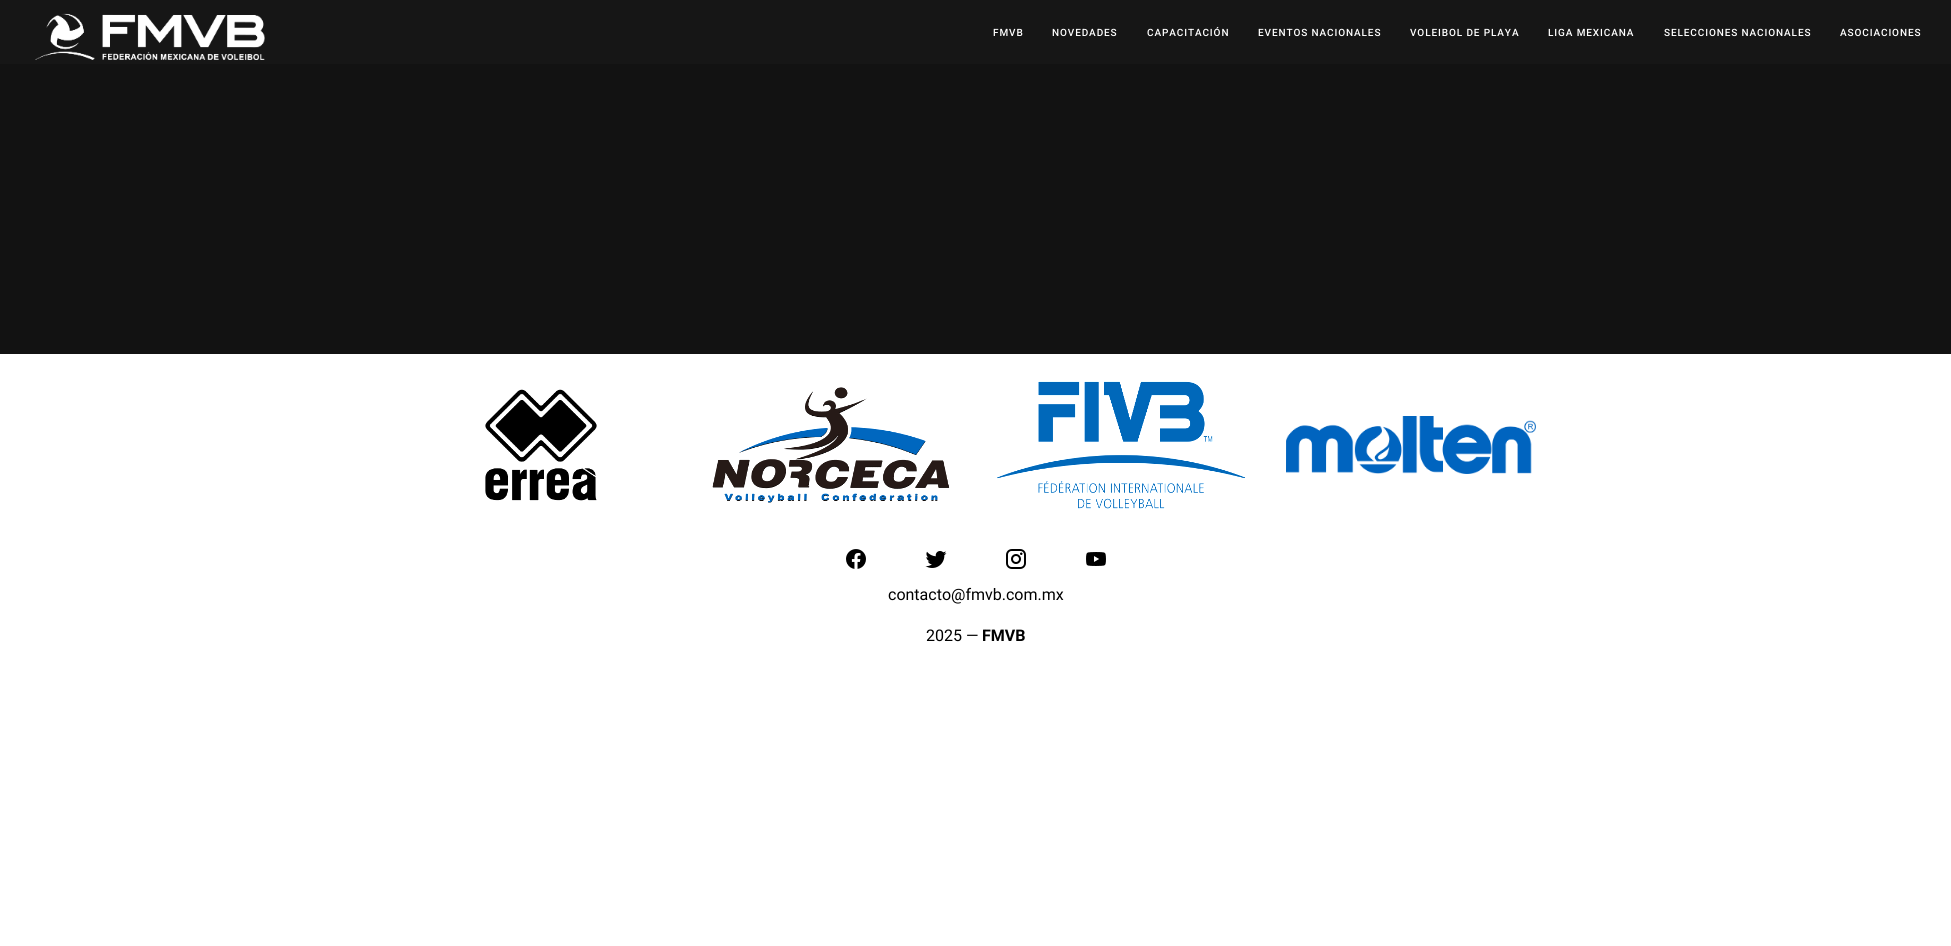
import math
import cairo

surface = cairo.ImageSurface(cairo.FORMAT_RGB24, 1951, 946)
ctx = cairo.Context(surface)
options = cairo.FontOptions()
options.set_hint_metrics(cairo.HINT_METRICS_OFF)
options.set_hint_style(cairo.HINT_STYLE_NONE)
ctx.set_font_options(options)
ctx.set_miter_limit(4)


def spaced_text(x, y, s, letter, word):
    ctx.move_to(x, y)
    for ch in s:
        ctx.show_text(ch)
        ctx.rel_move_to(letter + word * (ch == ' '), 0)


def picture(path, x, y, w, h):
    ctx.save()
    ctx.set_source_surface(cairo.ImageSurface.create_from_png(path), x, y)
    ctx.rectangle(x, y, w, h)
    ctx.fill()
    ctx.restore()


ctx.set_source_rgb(0.071, 0.071, 0.071)
ctx.paint()
ctx.set_source_rgb(0.086, 0.086, 0.086)
ctx.rectangle(0, 0, 1951, 64)
ctx.fill()
picture("img1.png", 35, 13, 230, 47)
ctx.select_font_face("Roboto Medium")
ctx.set_font_size(10)
ctx.set_source_rgb(1, 1, 1)
spaced_text(993, 36, "FMVB", 0.9, 0)
spaced_text(1052, 36, "NOVEDADES", 0.9, 0)
spaced_text(1147, 36, "CAPACITACIÓN", 0.9, 0)
spaced_text(1258, 36, "EVENTOS NACIONALES", 0.9, 0)
spaced_text(1410, 36, "VOLEIBOL DE PLAYA", 0.9, 0)
spaced_text(1548, 36, "LIGA MEXICANA", 0.9, 0)
spaced_text(1664, 36, "SELECCIONES NACIONALES", 0.9, 0)
spaced_text(1840, 36, "ASOCIACIONES", 0.9, 0)
ctx.rectangle(0, 354, 1951, 592)
ctx.fill()
picture("img2.png", 485, 389, 112, 112)
picture("img3.png", 712, 387, 238, 116)
picture("img4.png", 997, 381, 248, 128)
picture("img5.png", 1286, 416, 250, 58)
picture("img6.png", 846, 549, 20, 20)
picture("img7.png", 925, 551, 22, 17)
picture("img8.png", 1006, 549, 20, 20)
picture("img9.png", 1086, 552, 20, 14)
ctx.select_font_face("Roboto")
ctx.set_font_size(16)
ctx.set_source_rgb(0, 0, 0)
ctx.move_to(888, 600)
ctx.show_text("contacto@fmvb.com.mx")
ctx.move_to(926, 641)
ctx.show_text("2025 —")
ctx.select_font_face("Roboto", cairo.FONT_SLANT_NORMAL, cairo.FONT_WEIGHT_BOLD)
ctx.move_to(982, 641)
ctx.show_text("FMVB")
surface.write_to_png("page.png")
